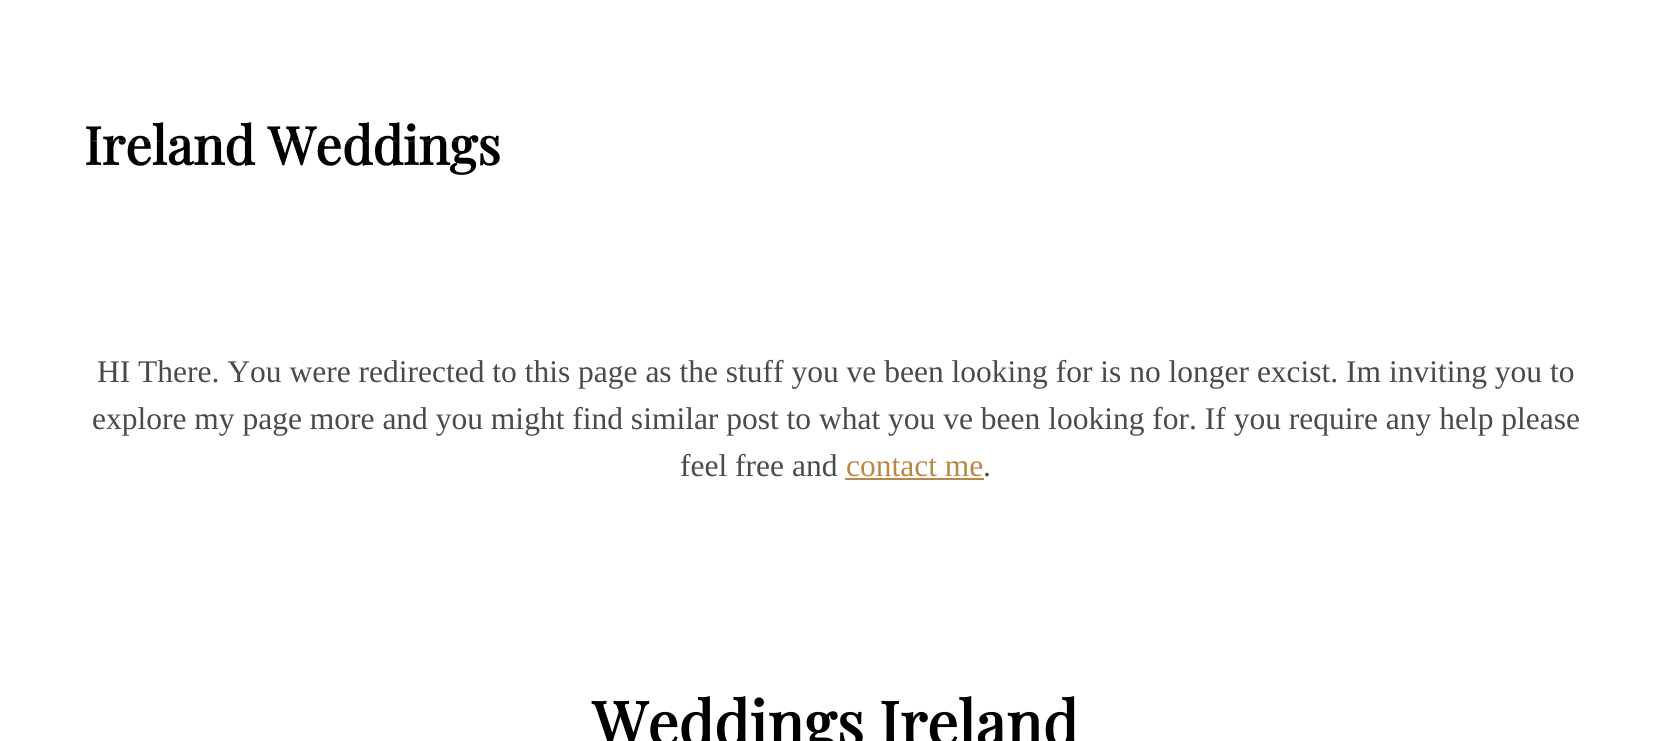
import math
import cairo

surface = cairo.ImageSurface(cairo.FORMAT_RGB24, 1670, 741)
ctx = cairo.Context(surface)
options = cairo.FontOptions()
options.set_hint_metrics(cairo.HINT_METRICS_OFF)
options.set_hint_style(cairo.HINT_STYLE_NONE)
ctx.set_font_options(options)
ctx.set_miter_limit(4)


ctx.set_source_rgb(1, 1, 1)
ctx.paint()
ctx.select_font_face("Playfair Display", cairo.FONT_SLANT_NORMAL, cairo.FONT_WEIGHT_BOLD)
ctx.set_font_size(52.5)
ctx.set_source_rgb(0, 0, 0)
ctx.move_to(84, 165)
ctx.show_text("Ireland Weddings")
ctx.select_font_face("Liberation Serif")
ctx.set_font_size(31.5)
ctx.set_source_rgb(0.29, 0.29, 0.29)
ctx.move_to(97, 382)
ctx.show_text("HI There. You were redirected to this page as the stuff you ve been looking for is no longer excist. Im inviting you to")
ctx.move_to(92, 429)
ctx.show_text("explore my page more and you might find similar post to what you ve been looking for. If you require any help please")
ctx.move_to(680, 476)
ctx.show_text("feel free and")
ctx.set_source_rgb(0.725, 0.533, 0.278)
ctx.move_to(846, 476)
ctx.show_text("contact me")
ctx.rectangle(845, 478, 139, 2)
ctx.fill()
ctx.set_source_rgb(0.29, 0.29, 0.29)
ctx.move_to(983, 476)
ctx.show_text(".")
ctx.select_font_face("Playfair Display", cairo.FONT_SLANT_NORMAL, cairo.FONT_WEIGHT_BOLD)
ctx.set_font_size(61.25)
ctx.set_source_rgb(0, 0, 0)
ctx.move_to(592, 746)
ctx.show_text("Weddings Ireland")
ctx.new_path()
ctx.move_to(84, 141)
ctx.line_to(1587, 141)
ctx.set_source_rgba(1, 1, 1, 0.15)
ctx.set_line_width(1.8)
ctx.set_dash([5.25, 3.52])
ctx.stroke()
surface.write_to_png("page.png")
